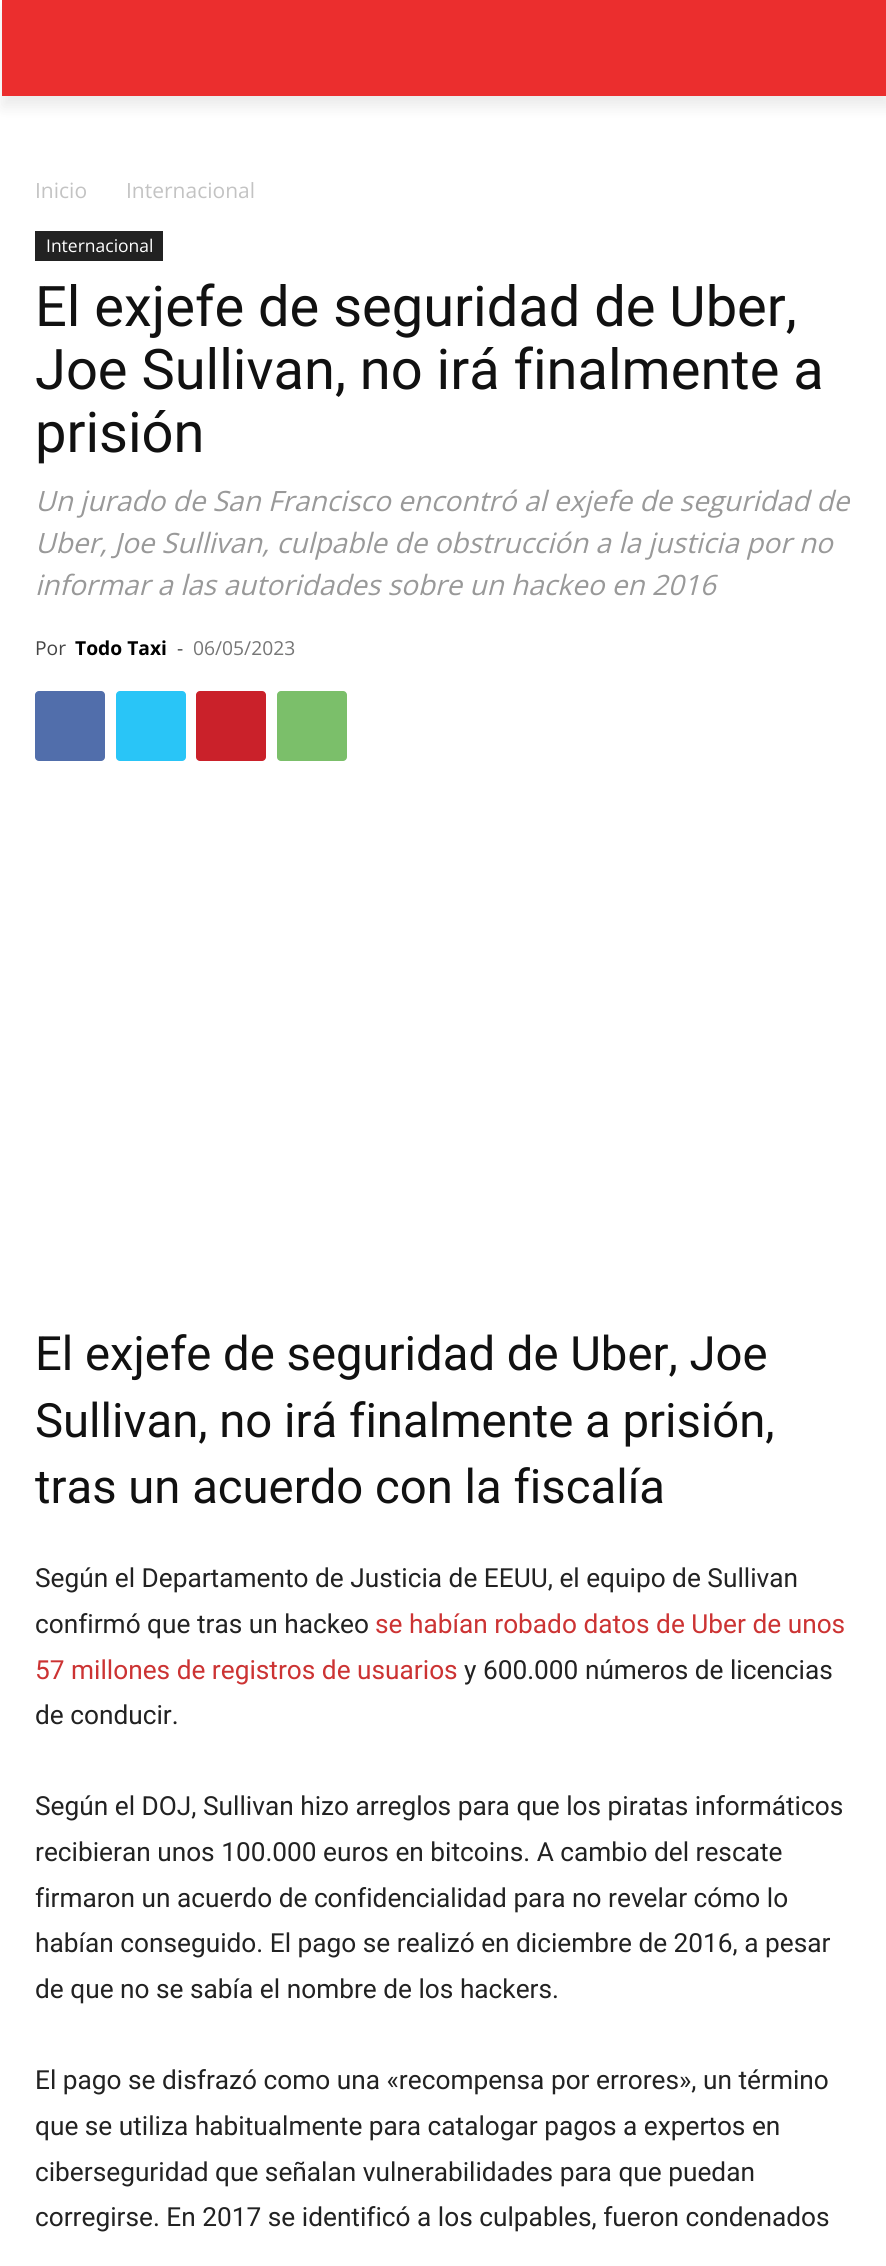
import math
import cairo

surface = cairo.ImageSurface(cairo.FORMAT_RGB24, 886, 2266)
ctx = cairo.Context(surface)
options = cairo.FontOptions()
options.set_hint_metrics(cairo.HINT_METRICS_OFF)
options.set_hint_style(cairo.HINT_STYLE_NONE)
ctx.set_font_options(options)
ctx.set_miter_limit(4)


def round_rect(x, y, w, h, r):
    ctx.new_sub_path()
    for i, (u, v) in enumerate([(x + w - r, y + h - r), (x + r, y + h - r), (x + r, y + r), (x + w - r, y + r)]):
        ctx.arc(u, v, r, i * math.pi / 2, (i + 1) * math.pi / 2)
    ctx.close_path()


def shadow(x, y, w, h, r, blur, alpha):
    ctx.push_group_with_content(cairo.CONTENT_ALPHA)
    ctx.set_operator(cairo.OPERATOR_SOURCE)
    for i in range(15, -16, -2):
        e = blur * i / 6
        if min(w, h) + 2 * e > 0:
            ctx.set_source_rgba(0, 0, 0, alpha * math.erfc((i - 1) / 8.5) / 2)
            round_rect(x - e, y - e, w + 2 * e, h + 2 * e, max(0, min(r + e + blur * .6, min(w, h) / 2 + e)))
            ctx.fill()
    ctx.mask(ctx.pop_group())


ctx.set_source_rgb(1, 1, 1)
ctx.paint()
ctx.set_source_rgb(0.918, 0.18, 0.18)
ctx.rectangle(2, 0, 884, 96)
ctx.fill()
ctx.save()
ctx.set_fill_rule(cairo.FILL_RULE_EVEN_ODD)
ctx.new_path()
ctx.move_to(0, 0)
ctx.line_to(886, 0)
ctx.line_to(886, 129)
ctx.line_to(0, 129)
ctx.close_path()
ctx.move_to(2, 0)
ctx.line_to(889, 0)
ctx.line_to(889, 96)
ctx.line_to(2, 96)
ctx.close_path()
ctx.clip()
ctx.set_source_rgb(0, 0, 0)
shadow(2, 11, 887, 96, 0, 7, 0.08)
ctx.restore()
ctx.select_font_face("Open Sans")
ctx.set_font_size(21)
ctx.set_source_rgb(0.765, 0.765, 0.765)
ctx.move_to(35, 198)
ctx.show_text("Inicio")
ctx.move_to(126, 198)
ctx.show_text("Internacional")
ctx.set_source_rgb(0.133, 0.133, 0.133)
ctx.rectangle(35, 231, 128, 30)
ctx.fill()
ctx.set_font_size(17.5)
ctx.set_source_rgb(1, 1, 1)
ctx.move_to(46, 252)
ctx.show_text("Internacional")
ctx.select_font_face("Roboto")
ctx.set_font_size(56)
ctx.set_source_rgb(0.067, 0.067, 0.067)
ctx.move_to(35, 326)
ctx.show_text("El exjefe de seguridad de Uber,")
ctx.move_to(35, 389)
ctx.show_text("Joe Sullivan, no irá finalmente a")
ctx.move_to(35, 452)
ctx.show_text("prisión")
ctx.select_font_face("Open Sans", cairo.FONT_SLANT_ITALIC)
ctx.set_font_size(28)
ctx.set_source_rgb(0.6, 0.6, 0.6)
ctx.move_to(35, 511)
ctx.show_text("Un jurado de San Francisco encontró al exjefe de seguridad de")
ctx.move_to(35, 553)
ctx.show_text("Uber, Joe Sullivan, culpable de obstrucción a la justicia por no")
ctx.move_to(35, 595)
ctx.show_text("informar a las autoridades sobre un hackeo en 2016")
ctx.select_font_face("Open Sans")
ctx.set_font_size(19.25)
ctx.set_source_rgb(0.267, 0.267, 0.267)
ctx.move_to(35, 655)
ctx.show_text("Por")
ctx.select_font_face("Open Sans", cairo.FONT_SLANT_NORMAL, cairo.FONT_WEIGHT_BOLD)
ctx.set_source_rgb(0, 0, 0)
ctx.move_to(75, 655)
ctx.show_text("Todo Taxi")
ctx.select_font_face("Open Sans")
ctx.set_source_rgb(0.267, 0.267, 0.267)
ctx.move_to(177, 655)
ctx.show_text("-")
ctx.set_source_rgb(0.463, 0.463, 0.463)
ctx.move_to(193, 655)
ctx.show_text("06/05/2023")
ctx.set_source_rgb(0.318, 0.431, 0.671)
round_rect(35, 691, 70, 70, 4)
ctx.fill()
ctx.set_source_rgb(0.161, 0.773, 0.965)
round_rect(116, 691, 70, 70, 4)
ctx.fill()
ctx.set_source_rgb(0.792, 0.129, 0.165)
round_rect(196, 691, 70, 70, 4)
ctx.fill()
ctx.set_source_rgb(0.482, 0.749, 0.416)
round_rect(277, 691, 70, 70, 4)
ctx.fill()
ctx.select_font_face("Roboto")
ctx.set_font_size(47.25)
ctx.set_source_rgb(0.067, 0.067, 0.067)
ctx.move_to(35, 1370)
ctx.show_text("El exjefe de seguridad de Uber, Joe")
ctx.move_to(35, 1437)
ctx.show_text("Sullivan, no irá finalmente a prisión,")
ctx.move_to(35, 1503)
ctx.show_text("tras un acuerdo con la fiscalía")
ctx.set_font_size(26.25)
ctx.set_source_rgb(0.133, 0.133, 0.133)
ctx.move_to(35, 1587)
ctx.show_text("Según el Departamento de Justicia de EEUU, el equipo de Sullivan")
ctx.move_to(35, 1633)
ctx.show_text("confirmó que tras un hackeo")
ctx.set_source_rgb(0.8, 0.2, 0.2)
ctx.move_to(375, 1633)
ctx.show_text("se habían robado datos de Uber de unos")
ctx.move_to(35, 1679)
ctx.show_text("57 millones de registros de usuarios")
ctx.set_source_rgb(0.133, 0.133, 0.133)
ctx.move_to(464, 1679)
ctx.show_text("y 600.000 números de licencias")
ctx.move_to(35, 1724)
ctx.show_text("de conducir.")
ctx.move_to(35, 1815)
ctx.show_text("Según el DOJ, Sullivan hizo arreglos para que los piratas informáticos")
ctx.move_to(35, 1861)
ctx.show_text("recibieran unos 100.000 euros en bitcoins. A cambio del rescate")
ctx.move_to(35, 1907)
ctx.show_text("firmaron un acuerdo de confidencialidad para no revelar cómo lo")
ctx.move_to(35, 1952)
ctx.show_text("habían conseguido. El pago se realizó en diciembre de 2016, a pesar")
ctx.move_to(35, 1998)
ctx.show_text("de que no se sabía el nombre de los hackers.")
ctx.move_to(35, 2089)
ctx.show_text("El pago se disfrazó como una «recompensa por errores», un término")
ctx.move_to(35, 2135)
ctx.show_text("que se utiliza habitualmente para catalogar pagos a expertos en")
ctx.move_to(35, 2181)
ctx.show_text("ciberseguridad que señalan vulnerabilidades para que puedan")
ctx.move_to(35, 2226)
ctx.show_text("corregirse. En 2017 se identificó a los culpables, fueron condenados")
surface.write_to_png("page.png")
